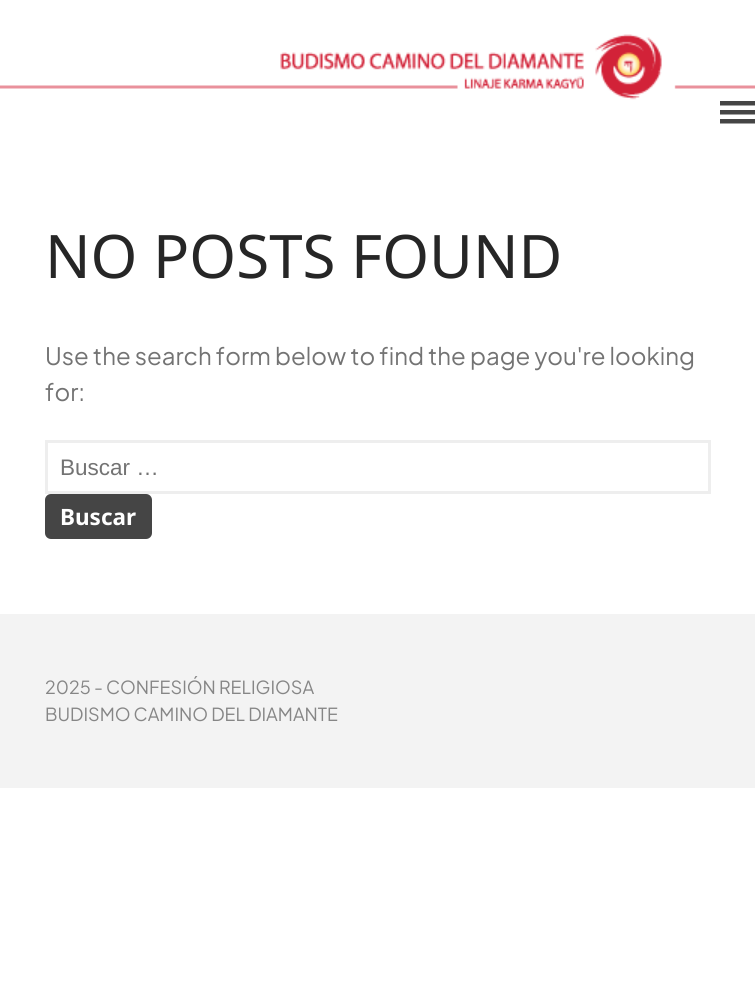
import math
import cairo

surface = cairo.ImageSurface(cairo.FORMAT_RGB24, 755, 982)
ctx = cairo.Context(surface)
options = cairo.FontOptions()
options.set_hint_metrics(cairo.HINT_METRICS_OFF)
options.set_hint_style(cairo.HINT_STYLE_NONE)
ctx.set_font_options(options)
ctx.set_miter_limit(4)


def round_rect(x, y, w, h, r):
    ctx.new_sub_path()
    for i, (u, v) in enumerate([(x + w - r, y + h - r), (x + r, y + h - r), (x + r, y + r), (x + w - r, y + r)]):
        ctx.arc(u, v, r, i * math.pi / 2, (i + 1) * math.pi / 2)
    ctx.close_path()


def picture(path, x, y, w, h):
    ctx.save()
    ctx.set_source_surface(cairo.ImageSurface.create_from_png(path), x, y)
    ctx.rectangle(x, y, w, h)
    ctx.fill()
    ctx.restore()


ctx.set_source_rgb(1, 1, 1)
ctx.paint()
picture("img1.png", 0, 34, 755, 66)
ctx.set_source_rgb(0.271, 0.271, 0.271)
ctx.new_path()
ctx.move_to(720, 101)
ctx.line_to(720, 105.5)
ctx.line_to(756, 105.5)
ctx.line_to(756, 101)
ctx.close_path()
ctx.move_to(720, 110)
ctx.line_to(720, 114.5)
ctx.line_to(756, 114.5)
ctx.line_to(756, 110)
ctx.close_path()
ctx.move_to(720, 119)
ctx.line_to(720, 123.5)
ctx.line_to(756, 123.5)
ctx.line_to(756, 119)
ctx.close_path()
ctx.fill()
ctx.select_font_face("Noto Sans")
ctx.set_font_size(60)
ctx.set_source_rgb(0.149, 0.149, 0.149)
ctx.move_to(45, 278)
ctx.show_text("NO POSTS FOUND")
ctx.select_font_face("Plus Jakarta Sans")
ctx.set_font_size(24)
ctx.set_source_rgb(0.451, 0.451, 0.451)
ctx.move_to(45, 365)
ctx.show_text("Use the search form below to find the page you're looking")
ctx.move_to(45, 401)
ctx.show_text("for:")
ctx.rectangle(46.5, 441.5, 663, 51)
ctx.set_source_rgb(0.933, 0.933, 0.933)
ctx.set_line_width(3)
ctx.stroke()
ctx.select_font_face("Liberation Sans")
ctx.set_font_size(22.5)
ctx.set_source_rgb(0.451, 0.451, 0.451)
ctx.move_to(60, 475)
ctx.show_text("Buscar …")
ctx.set_source_rgb(0.271, 0.271, 0.271)
round_rect(45, 494, 107, 45, 6)
ctx.fill()
ctx.select_font_face("Noto Sans", cairo.FONT_SLANT_NORMAL, cairo.FONT_WEIGHT_BOLD)
ctx.set_source_rgb(1, 1, 1)
ctx.move_to(60, 525)
ctx.show_text("Buscar")
ctx.set_source_rgb(0.953, 0.953, 0.953)
ctx.rectangle(0, 614, 755, 174)
ctx.fill()
ctx.select_font_face("Plus Jakarta Sans")
ctx.set_font_size(18)
ctx.set_source_rgb(0.525, 0.525, 0.525)
ctx.move_to(45, 694)
ctx.show_text("2025 - CONFESIÓN RELIGIOSA")
ctx.move_to(45, 721)
ctx.show_text("BUDISMO CAMINO DEL DIAMANTE")
surface.write_to_png("page.png")
